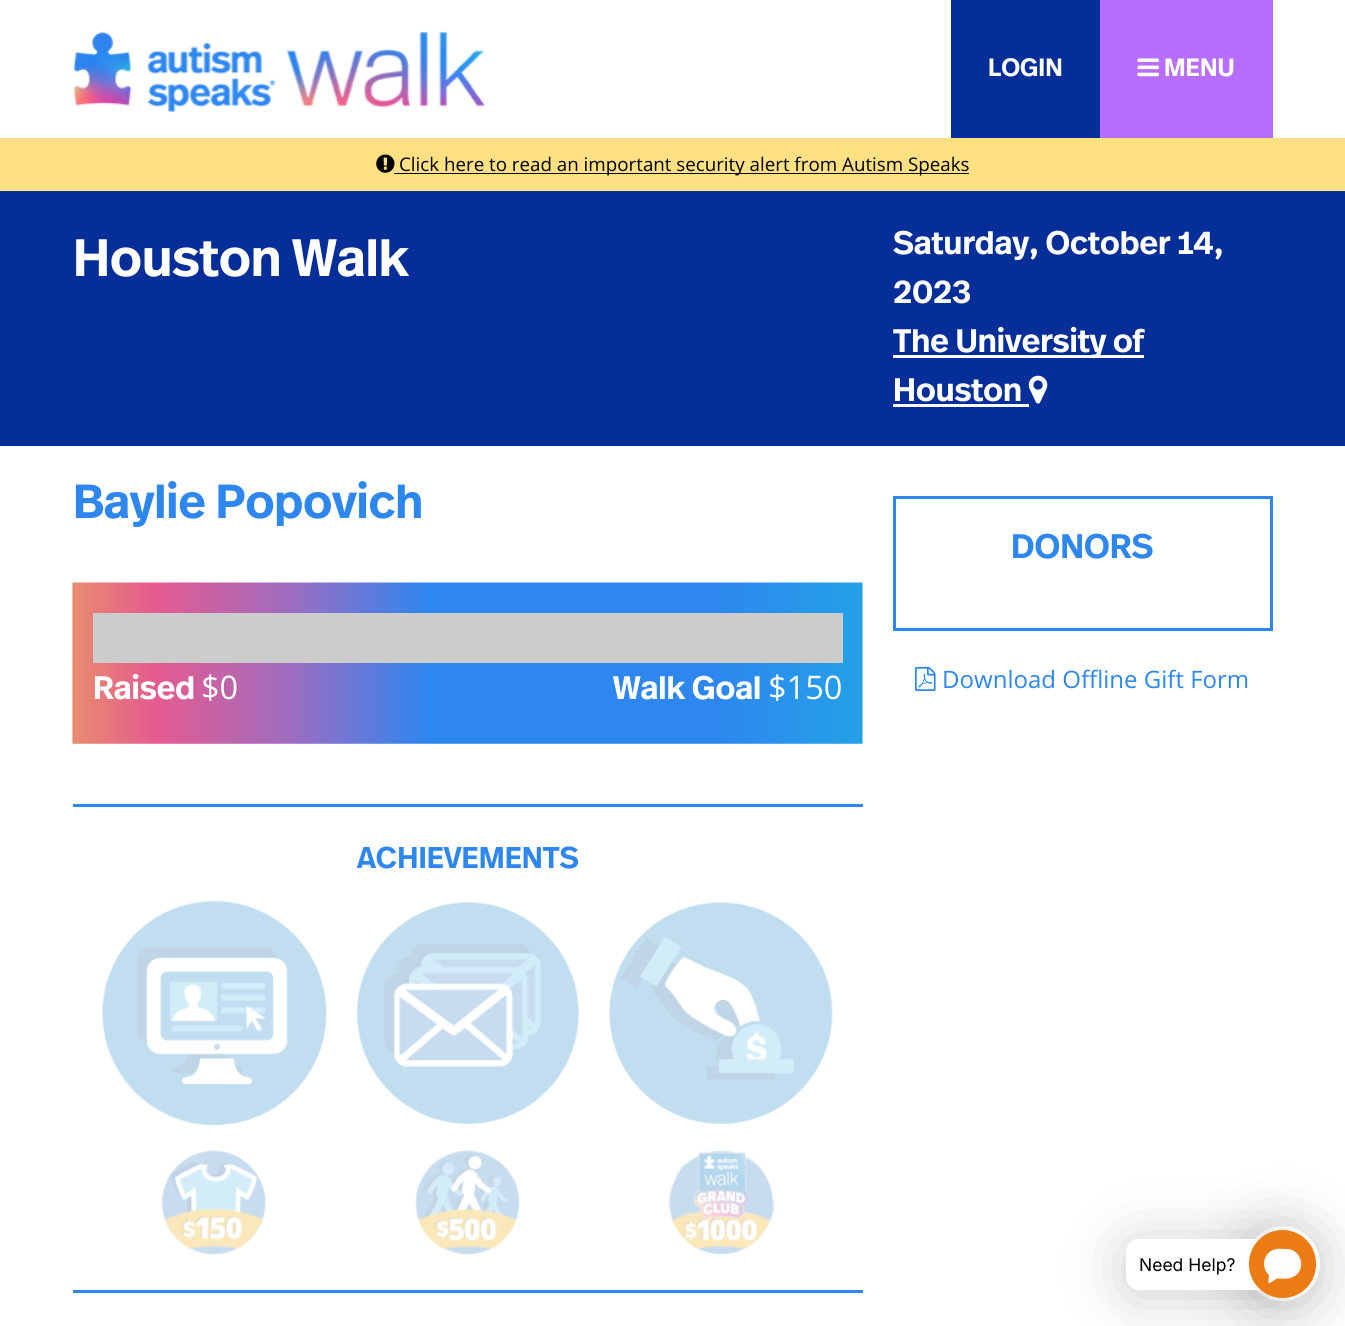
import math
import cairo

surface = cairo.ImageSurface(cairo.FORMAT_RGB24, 1345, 1326)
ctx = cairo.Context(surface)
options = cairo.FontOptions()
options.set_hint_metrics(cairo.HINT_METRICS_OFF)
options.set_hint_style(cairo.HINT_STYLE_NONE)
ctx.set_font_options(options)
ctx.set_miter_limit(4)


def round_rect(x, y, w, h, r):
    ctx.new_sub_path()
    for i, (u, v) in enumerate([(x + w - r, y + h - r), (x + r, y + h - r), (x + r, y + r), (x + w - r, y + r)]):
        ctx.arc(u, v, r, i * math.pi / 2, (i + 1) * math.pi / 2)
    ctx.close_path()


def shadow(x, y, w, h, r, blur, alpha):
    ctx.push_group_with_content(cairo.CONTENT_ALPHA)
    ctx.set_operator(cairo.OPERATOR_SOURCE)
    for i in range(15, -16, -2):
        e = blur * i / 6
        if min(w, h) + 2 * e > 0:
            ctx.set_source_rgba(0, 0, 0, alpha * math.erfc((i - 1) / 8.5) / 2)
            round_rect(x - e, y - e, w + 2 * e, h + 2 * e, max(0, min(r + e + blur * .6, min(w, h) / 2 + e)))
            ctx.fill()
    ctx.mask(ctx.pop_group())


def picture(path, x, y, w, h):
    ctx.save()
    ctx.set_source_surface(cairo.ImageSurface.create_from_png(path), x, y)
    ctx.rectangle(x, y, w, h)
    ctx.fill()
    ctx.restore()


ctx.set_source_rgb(1, 1, 1)
ctx.paint()
picture("img1.png", 73, 31, 412, 82)
ctx.set_source_rgb(0.027, 0.18, 0.6)
ctx.rectangle(951, 0, 149, 138)
ctx.fill()
ctx.select_font_face("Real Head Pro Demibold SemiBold")
ctx.set_font_size(25)
ctx.set_source_rgb(1, 1, 1)
ctx.move_to(988, 76)
ctx.show_text("LOGIN")
ctx.set_source_rgb(0.725, 0.427, 0.988)
ctx.rectangle(1100, 0, 173, 138)
ctx.fill()
picture("img2.png", 1137, 58, 22, 19)
ctx.set_source_rgb(1, 1, 1)
ctx.move_to(1164, 76)
ctx.show_text("MENU")
ctx.set_source_rgb(1, 0.878, 0.514)
ctx.rectangle(0, 138, 1345, 53)
ctx.fill()
picture("img3.png", 376, 154, 19, 19)
ctx.set_source_rgb(0, 0, 0)
ctx.rectangle(394, 173, 575, 1)
ctx.fill()
ctx.select_font_face("Open Sans")
ctx.set_font_size(18.75)
ctx.move_to(399, 171)
ctx.show_text("Click here to read an important security alert from Autism Speaks")
ctx.set_source_rgb(0.027, 0.18, 0.6)
ctx.rectangle(0, 191, 1345, 255)
ctx.fill()
ctx.select_font_face("Real Head Pro Demibold SemiBold")
ctx.set_font_size(52.5)
ctx.set_source_rgb(1, 1, 1)
ctx.move_to(73, 276)
ctx.show_text("Houston Walk")
ctx.set_font_size(32.5)
ctx.move_to(893, 254)
ctx.show_text("Saturday, October 14,")
ctx.move_to(893, 303)
ctx.show_text("2023")
ctx.rectangle(893, 355, 251, 3)
ctx.fill()
ctx.move_to(893, 352)
ctx.show_text("The University of")
ctx.move_to(893, 401)
ctx.show_text("Houston")
ctx.rectangle(893, 404, 136, 3)
ctx.fill()
picture("img4.png", 1028, 375, 20, 29)
ctx.set_font_size(47.75)
ctx.set_source_rgb(0.18, 0.525, 0.937)
ctx.move_to(73, 518)
ctx.show_text("Baylie Popovich")
picture("img5.png", 72, 582, 791, 162)
ctx.set_source_rgb(0.8, 0.8, 0.8)
ctx.rectangle(93, 613, 750, 50)
ctx.fill()
ctx.set_font_size(32.5)
ctx.set_source_rgb(1, 1, 1)
ctx.move_to(93, 699)
ctx.show_text("Raised")
ctx.select_font_face("Open Sans")
ctx.move_to(201, 699)
ctx.show_text("$0")
ctx.select_font_face("Real Head Pro Demibold SemiBold")
ctx.move_to(613, 699)
ctx.show_text("Walk Goal")
ctx.select_font_face("Open Sans")
ctx.move_to(768, 699)
ctx.show_text("$150")
ctx.set_source_rgb(0.18, 0.525, 0.937)
ctx.rectangle(73, 804, 790, 3)
ctx.fill()
ctx.rectangle(73, 1290, 790, 3)
ctx.fill()
ctx.select_font_face("Real Head Pro Demibold SemiBold")
ctx.set_font_size(30)
ctx.move_to(357, 868)
ctx.show_text("ACHIEVEMENTS")
picture("img6.png", 102, 901, 225, 224)
picture("img7.png", 356, 902, 223, 222)
picture("img8.png", 608, 902, 225, 222)
picture("img9.png", 161, 1150, 106, 105)
picture("img10.png", 415, 1150, 105, 105)
picture("img11.png", 665, 1150, 114, 105)
ctx.rectangle(894.5, 497.5, 377, 132)
ctx.set_line_width(3)
ctx.stroke()
ctx.set_font_size(34)
ctx.move_to(1011, 558)
ctx.show_text("DONORS")
picture("img12.png", 915, 666, 21, 25)
ctx.select_font_face("Open Sans")
ctx.set_font_size(24)
ctx.move_to(942, 688)
ctx.show_text("Download Offline Gift Form")
ctx.set_source_rgb(0, 0, 0)
shadow(1245, 1231, 75, 75, 37.5, 30, 0.2)
ctx.set_source_rgb(1, 1, 1)
ctx.arc(1282.5, 1263.5, 37.5, 0, 2 * math.pi)
ctx.fill()
ctx.set_source_rgb(0, 0, 0)
shadow(1126, 1244, 157, 51, 13, 30, 0.2)
ctx.set_source_rgb(1, 1, 1)
round_rect(1126, 1239, 157, 51, 13)
ctx.fill()
ctx.set_source_rgb(0.918, 0.486, 0.082)
round_rect(1249, 1230, 67, 68, 33.5)
ctx.fill()
ctx.set_source_rgb(1, 1, 1)
ctx.set_fill_rule(cairo.FILL_RULE_EVEN_ODD)
ctx.new_path()
ctx.move_to(1286.5, 1249)
ctx.curve_to(1302.5, 1249, 1307, 1271.5, 1292, 1277.5)
ctx.curve_to(1288.5, 1279, 1281.5, 1279, 1277, 1278.5)
ctx.curve_to(1267, 1284.5, 1268, 1286, 1269, 1275)
ctx.curve_to(1261, 1268, 1263, 1254, 1273, 1250)
ctx.curve_to(1277, 1248, 1282, 1249, 1286.5, 1249)
ctx.close_path()
ctx.fill()
ctx.select_font_face("Inter")
ctx.set_font_size(17.5)
ctx.set_source_rgb(0, 0, 0)
ctx.move_to(1139, 1271)
ctx.show_text("Need Help?")
surface.write_to_png("page.png")
